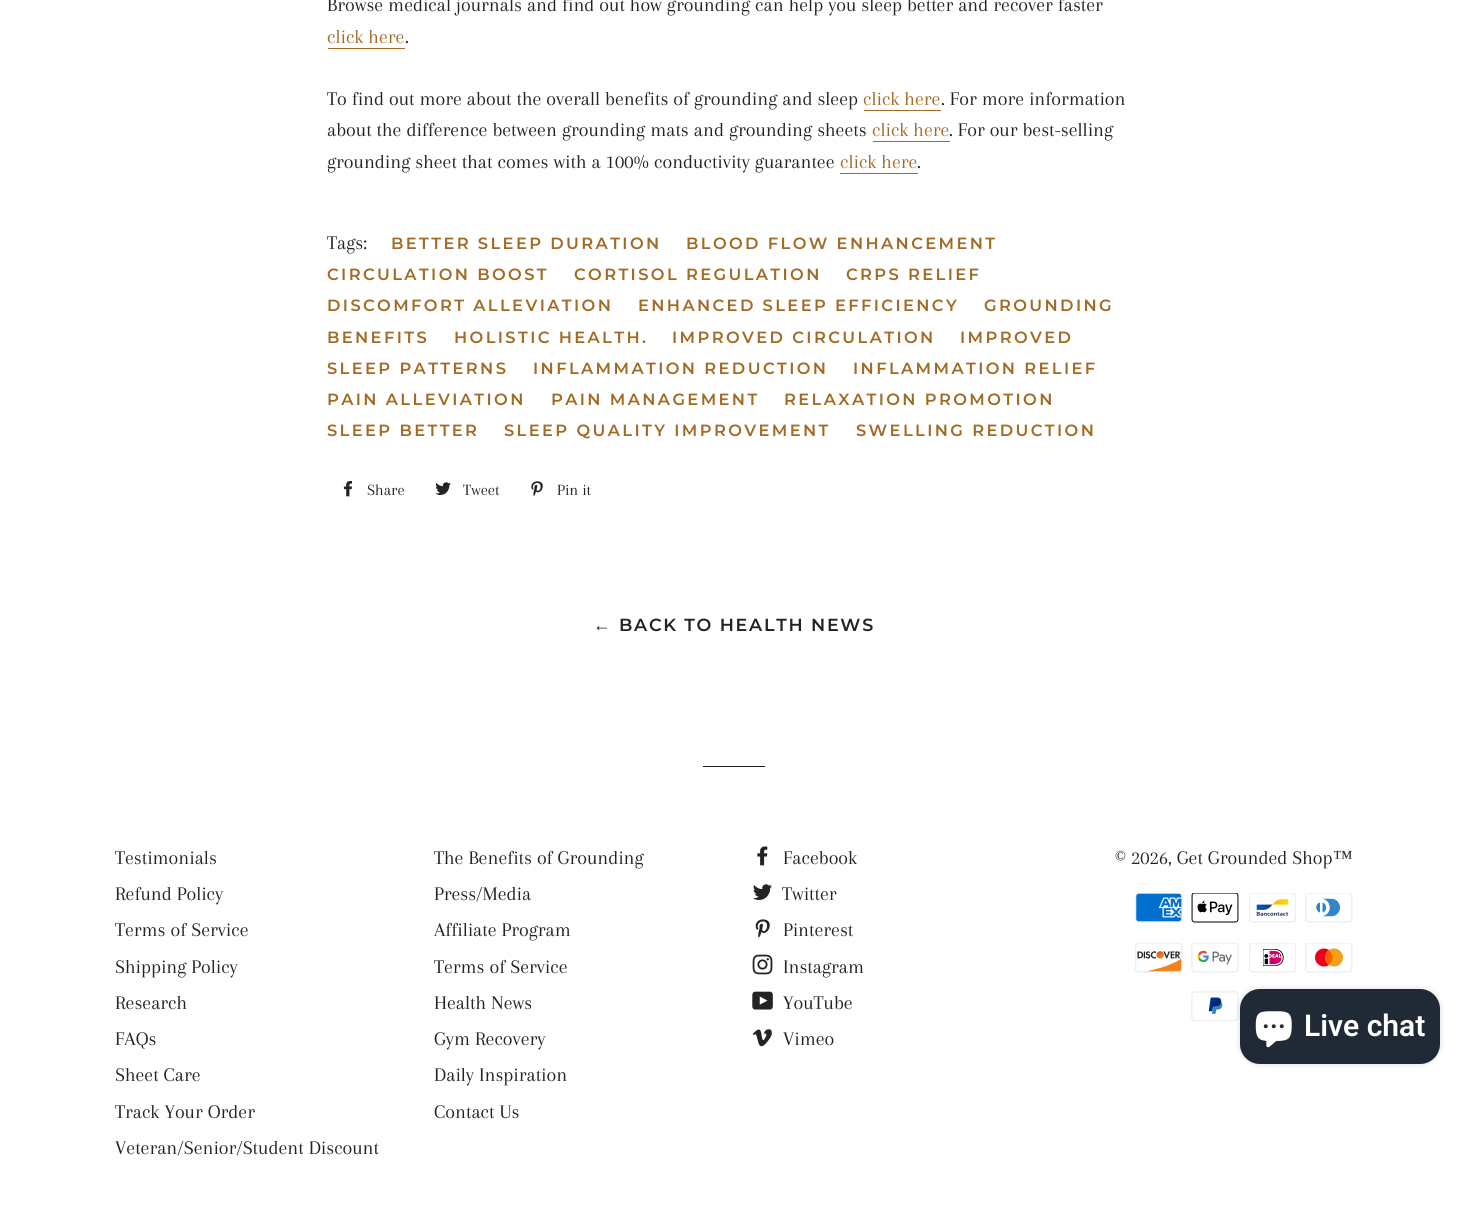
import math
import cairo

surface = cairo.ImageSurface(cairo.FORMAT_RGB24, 1467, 1220)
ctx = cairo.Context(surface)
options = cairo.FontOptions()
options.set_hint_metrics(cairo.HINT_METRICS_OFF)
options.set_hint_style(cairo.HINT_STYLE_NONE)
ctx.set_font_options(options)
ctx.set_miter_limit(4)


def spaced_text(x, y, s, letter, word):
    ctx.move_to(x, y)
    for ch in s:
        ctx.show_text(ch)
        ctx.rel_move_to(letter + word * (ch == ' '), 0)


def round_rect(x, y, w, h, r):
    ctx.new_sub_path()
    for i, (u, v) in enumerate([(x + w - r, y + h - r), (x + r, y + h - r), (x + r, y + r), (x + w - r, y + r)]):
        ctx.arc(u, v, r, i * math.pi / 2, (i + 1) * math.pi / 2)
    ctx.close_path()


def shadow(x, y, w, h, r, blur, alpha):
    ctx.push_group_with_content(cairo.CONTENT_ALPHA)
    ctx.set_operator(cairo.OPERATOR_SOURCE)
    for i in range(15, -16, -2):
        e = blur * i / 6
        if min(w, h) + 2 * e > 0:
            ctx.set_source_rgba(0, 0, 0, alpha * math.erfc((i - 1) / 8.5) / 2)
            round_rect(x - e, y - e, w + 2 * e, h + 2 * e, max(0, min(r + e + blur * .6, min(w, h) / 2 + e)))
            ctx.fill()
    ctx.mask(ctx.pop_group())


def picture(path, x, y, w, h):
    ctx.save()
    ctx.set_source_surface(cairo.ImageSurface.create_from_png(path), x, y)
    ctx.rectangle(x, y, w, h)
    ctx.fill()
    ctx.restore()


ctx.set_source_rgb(1, 1, 1)
ctx.paint()
ctx.select_font_face("Arapey")
ctx.set_font_size(20)
ctx.set_source_rgb(0.133, 0.137, 0.137)
ctx.move_to(327, 11)
ctx.show_text("Browse medical journals and find out how grounding can help you sleep better and recover faster")
ctx.set_source_rgb(0.635, 0.42, 0.145)
ctx.move_to(327, 43)
ctx.show_text("click here")
ctx.rectangle(328, 48, 77, 1)
ctx.fill()
ctx.set_source_rgb(0.133, 0.137, 0.137)
ctx.move_to(405, 43)
ctx.show_text(".")
ctx.move_to(327, 105)
ctx.show_text("To find out more about the overall benefits of grounding and sleep")
ctx.set_source_rgb(0.635, 0.42, 0.145)
ctx.move_to(863, 105)
ctx.show_text("click here")
ctx.rectangle(864, 110, 77, 1)
ctx.fill()
ctx.set_source_rgb(0.133, 0.137, 0.137)
ctx.move_to(941, 105)
ctx.show_text(". For more information")
ctx.move_to(327, 136)
ctx.show_text("about the difference between grounding mats and grounding sheets")
ctx.set_source_rgb(0.635, 0.42, 0.145)
ctx.move_to(872, 136)
ctx.show_text("click here")
ctx.rectangle(873, 141, 77, 1)
ctx.fill()
ctx.set_source_rgb(0.133, 0.137, 0.137)
ctx.move_to(949, 136)
ctx.show_text(". For our best-selling")
ctx.move_to(327, 168)
ctx.show_text("grounding sheet that comes with a 100% conductivity guarantee")
ctx.set_source_rgb(0.635, 0.42, 0.145)
ctx.move_to(840, 168)
ctx.show_text("click here")
ctx.rectangle(840, 173, 78, 1)
ctx.fill()
ctx.set_source_rgb(0.133, 0.137, 0.137)
ctx.move_to(917, 168)
ctx.show_text(".")
ctx.move_to(327, 249)
ctx.show_text("Tags:")
ctx.select_font_face("Montserrat SemiBold")
ctx.set_font_size(16.25)
ctx.set_source_rgb(0.635, 0.42, 0.145)
spaced_text(391, 249, "BETTER SLEEP DURATION", 2.4, 0)
spaced_text(686, 249, "BLOOD FLOW ENHANCEMENT", 2.4, 0)
spaced_text(327, 280, "CIRCULATION BOOST", 2.4, 0)
spaced_text(574, 280, "CORTISOL REGULATION", 2.4, 0)
spaced_text(846, 280, "CRPS RELIEF", 2.4, 0)
spaced_text(327, 311, "DISCOMFORT ALLEVIATION", 2.4, 0)
spaced_text(638, 311, "ENHANCED SLEEP EFFICIENCY", 2.4, 0)
spaced_text(984, 311, "GROUNDING", 2.4, 0)
spaced_text(327, 343, "BENEFITS", 2.4, 0)
spaced_text(454, 343, "HOLISTIC HEALTH.", 2.4, 0)
spaced_text(672, 343, "IMPROVED CIRCULATION", 2.4, 0)
spaced_text(960, 343, "IMPROVED", 2.4, 0)
spaced_text(327, 374, "SLEEP PATTERNS", 2.4, 0)
spaced_text(533, 374, "INFLAMMATION REDUCTION", 2.4, 0)
spaced_text(853, 374, "INFLAMMATION RELIEF", 2.4, 0)
spaced_text(327, 405, "PAIN ALLEVIATION", 2.4, 0)
spaced_text(551, 405, "PAIN MANAGEMENT", 2.4, 0)
spaced_text(784, 405, "RELAXATION PROMOTION", 2.4, 0)
spaced_text(327, 436, "SLEEP BETTER", 2.4, 0)
spaced_text(504, 436, "SLEEP QUALITY IMPROVEMENT", 2.4, 0)
spaced_text(856, 436, "SWELLING REDUCTION", 2.4, 0)
picture("img1.png", 343, 481, 10, 16)
ctx.select_font_face("Arapey")
ctx.set_source_rgb(0.133, 0.137, 0.137)
ctx.move_to(367, 495)
ctx.show_text("Share")
picture("img2.png", 435, 482, 16, 13)
ctx.move_to(463, 495)
ctx.show_text("Tweet")
picture("img3.png", 531, 481, 12, 16)
ctx.move_to(557, 495)
ctx.show_text("Pin it")
ctx.select_font_face("Liberation Sans", cairo.FONT_SLANT_NORMAL, cairo.FONT_WEIGHT_BOLD)
ctx.set_font_size(17.5)
spaced_text(593, 631, "←", 1.75, 0)
ctx.select_font_face("Montserrat SemiBold")
spaced_text(619, 631, "BACK TO HEALTH NEWS", 1.75, 0)
ctx.set_source_rgb(0.11, 0.114, 0.114)
ctx.rectangle(703, 766, 62, 1)
ctx.fill()
ctx.select_font_face("Arapey")
ctx.set_font_size(20)
ctx.set_source_rgb(0.133, 0.137, 0.137)
ctx.move_to(115, 864)
ctx.show_text("Testimonials")
ctx.move_to(115, 900)
ctx.show_text("Refund Policy")
ctx.move_to(115, 936)
ctx.show_text("Terms of Service")
ctx.move_to(115, 973)
ctx.show_text("Shipping Policy")
ctx.move_to(115, 1009)
ctx.show_text("Research")
ctx.move_to(115, 1045)
ctx.show_text("FAQs")
ctx.move_to(115, 1081)
ctx.show_text("Sheet Care")
ctx.move_to(115, 1118)
ctx.show_text("Track Your Order")
ctx.move_to(115, 1154)
ctx.show_text("Veteran/Senior/Student Discount")
ctx.move_to(434, 864)
ctx.show_text("The Benefits of Grounding")
ctx.move_to(434, 900)
ctx.show_text("Press/Media")
ctx.move_to(434, 936)
ctx.show_text("Affiliate Program")
ctx.move_to(434, 973)
ctx.show_text("Terms of Service")
ctx.move_to(434, 1009)
ctx.show_text("Health News")
ctx.move_to(434, 1045)
ctx.show_text("Gym Recovery")
ctx.move_to(434, 1081)
ctx.show_text("Daily Inspiration")
ctx.move_to(434, 1118)
ctx.show_text("Contact Us")
picture("img4.png", 757, 846, 11, 20)
ctx.move_to(783, 864)
ctx.show_text("Facebook")
picture("img5.png", 753, 884, 19, 16)
ctx.move_to(782, 900)
ctx.show_text("Twitter")
picture("img6.png", 755, 919, 15, 19)
ctx.move_to(783, 936)
ctx.show_text("Pinterest")
picture("img7.png", 752, 954, 21, 21)
ctx.move_to(783, 973)
ctx.show_text("Instagram")
picture("img8.png", 752, 991, 21, 19)
ctx.move_to(783, 1009)
ctx.show_text("YouTube")
picture("img9.png", 752, 1029, 20, 18)
ctx.move_to(783, 1045)
ctx.show_text("Vimeo")
ctx.move_to(1115, 864)
ctx.show_text("© 2026, Get Grounded Shop")
ctx.select_font_face("Liberation Serif")
ctx.move_to(1333, 864)
ctx.show_text("™")
picture("img10.png", 1135, 893, 48, 30)
picture("img11.png", 1191, 893, 48, 30)
picture("img12.png", 1249, 893, 47, 30)
picture("img13.png", 1305, 893, 48, 30)
picture("img14.png", 1135, 943, 48, 30)
picture("img15.png", 1191, 943, 48, 30)
picture("img16.png", 1249, 943, 47, 30)
picture("img17.png", 1305, 943, 48, 30)
picture("img18.png", 1191, 991, 48, 30)
picture("img19.png", 1249, 991, 3, 2)
ctx.set_source_rgb(0, 0, 0)
shadow(1240, 989, 200, 75, 20, 3, 0.15)
ctx.set_source_rgb(0.125, 0.165, 0.212)
round_rect(1240, 989, 200, 75, 20)
ctx.fill()
picture("img20.png", 1255, 1011, 37, 37)
ctx.select_font_face("Roboto SemiBold")
ctx.set_font_size(30)
ctx.set_source_rgb(1, 1, 1)
ctx.move_to(1304, 1036)
ctx.show_text("Live chat")
surface.write_to_png("page.png")
